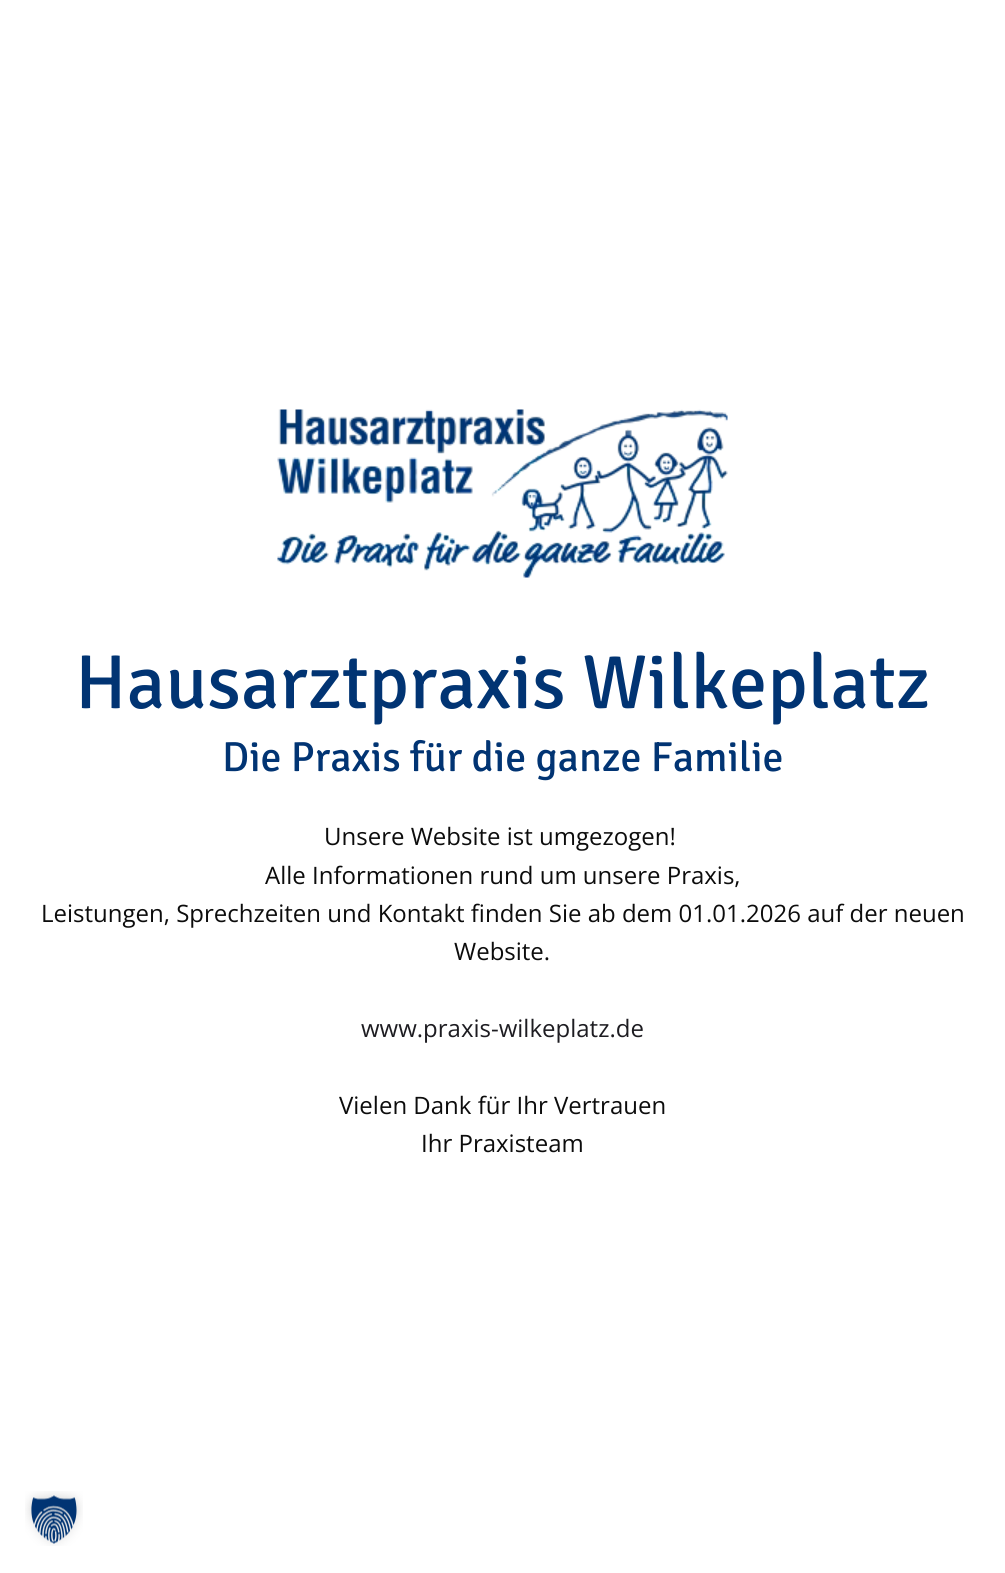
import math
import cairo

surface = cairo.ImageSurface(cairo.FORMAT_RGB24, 1005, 1573)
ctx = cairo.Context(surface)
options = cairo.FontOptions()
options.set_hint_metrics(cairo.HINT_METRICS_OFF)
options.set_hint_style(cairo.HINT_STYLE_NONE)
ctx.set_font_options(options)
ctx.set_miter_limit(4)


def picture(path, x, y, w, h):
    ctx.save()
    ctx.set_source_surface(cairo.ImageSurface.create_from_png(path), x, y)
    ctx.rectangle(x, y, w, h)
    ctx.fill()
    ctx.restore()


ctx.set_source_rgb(1, 1, 1)
ctx.paint()
picture("img1.png", 277, 409, 451, 169)
ctx.select_font_face("Signika Light")
ctx.set_font_size(76.5)
ctx.set_source_rgb(0.004, 0.204, 0.451)
ctx.move_to(75, 708)
ctx.show_text("Hausarztpraxis Wilkeplatz")
ctx.set_font_size(42)
ctx.move_to(222, 771)
ctx.show_text("Die Praxis für die ganze Familie")
ctx.select_font_face("Open Sans")
ctx.set_font_size(24)
ctx.set_source_rgb(0.047, 0.047, 0.047)
ctx.move_to(324, 845)
ctx.show_text("Unsere Website ist umgezogen!")
ctx.move_to(265, 884)
ctx.show_text("Alle Informationen rund um unsere Praxis,")
ctx.move_to(41, 922)
ctx.show_text("Leistungen, Sprechzeiten und Kontakt finden Sie ab dem 01.01.2026 auf der neuen")
ctx.move_to(454, 960)
ctx.show_text("Website.")
ctx.set_source_rgb(0.114, 0.11, 0.129)
ctx.move_to(361, 1037)
ctx.show_text("www.praxis-wilkeplatz.de")
ctx.set_source_rgb(0.047, 0.047, 0.047)
ctx.move_to(339, 1114)
ctx.show_text("Vielen Dank für Ihr Vertrauen")
ctx.move_to(421, 1152)
ctx.show_text("Ihr Praxisteam")
picture("img2.png", 25, 1491, 58, 55)
surface.write_to_png("page.png")
